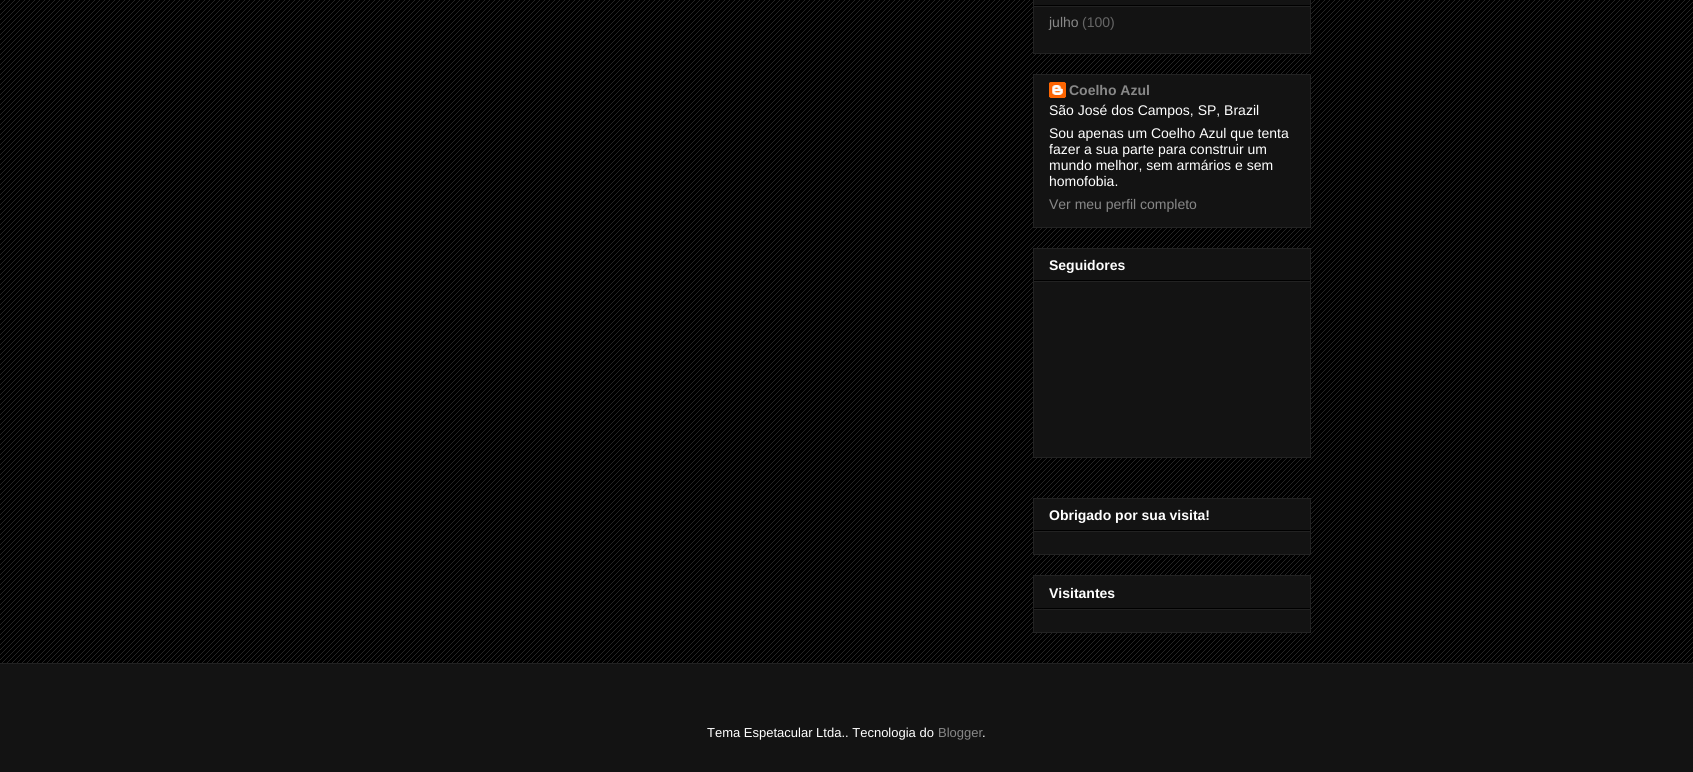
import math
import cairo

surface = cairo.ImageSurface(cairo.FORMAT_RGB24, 1693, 772)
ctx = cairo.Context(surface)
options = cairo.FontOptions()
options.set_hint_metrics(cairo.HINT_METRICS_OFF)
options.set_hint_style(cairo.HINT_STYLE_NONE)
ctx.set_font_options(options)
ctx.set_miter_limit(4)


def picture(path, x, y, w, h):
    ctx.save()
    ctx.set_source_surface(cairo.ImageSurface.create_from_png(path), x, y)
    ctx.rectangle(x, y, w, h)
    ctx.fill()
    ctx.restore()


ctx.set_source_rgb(0, 0, 0)
ctx.paint()
picture("img1.png", 0, 0, 1693, 663)
ctx.set_source_rgb(0.078, 0.078, 0.078)
ctx.rectangle(1033.5, -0.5, 277, 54)
ctx.fill_preserve()
ctx.set_source_rgb(0.133, 0.133, 0.133)
ctx.set_line_width(1)
ctx.stroke()
ctx.set_source_rgb(0, 0, 0)
ctx.rectangle(1034, 5, 276, 1)
ctx.fill()
ctx.set_source_rgb(0.133, 0.133, 0.133)
ctx.rectangle(1034, 6, 276, 1)
ctx.fill()
ctx.select_font_face("Liberation Sans")
ctx.set_font_size(14)
ctx.set_source_rgb(0.533, 0.533, 0.533)
ctx.move_to(1049, 27)
ctx.show_text("julho")
ctx.set_source_rgb(0.4, 0.4, 0.4)
ctx.move_to(1082, 27)
ctx.show_text("(100)")
ctx.set_source_rgb(0.078, 0.078, 0.078)
ctx.rectangle(1033.5, 74.5, 277, 153)
ctx.fill_preserve()
ctx.set_source_rgb(0.133, 0.133, 0.133)
ctx.stroke()
picture("img2.png", 1049, 82, 17, 16)
ctx.select_font_face("Liberation Sans", cairo.FONT_SLANT_NORMAL, cairo.FONT_WEIGHT_BOLD)
ctx.set_source_rgb(0.533, 0.533, 0.533)
ctx.move_to(1069, 95)
ctx.show_text("Coelho Azul")
ctx.select_font_face("Liberation Sans")
ctx.set_source_rgb(1, 1, 1)
ctx.move_to(1049, 115)
ctx.show_text("São José dos Campos, SP, Brazil")
ctx.move_to(1049, 138)
ctx.show_text("Sou apenas um Coelho Azul que tenta")
ctx.move_to(1049, 154)
ctx.show_text("fazer a sua parte para construir um")
ctx.move_to(1049, 170)
ctx.show_text("mundo melhor, sem armários e sem")
ctx.move_to(1049, 186)
ctx.show_text("homofobia.")
ctx.set_source_rgb(0.533, 0.533, 0.533)
ctx.move_to(1049, 209)
ctx.show_text("Ver meu perfil completo")
ctx.set_source_rgb(0.078, 0.078, 0.078)
ctx.rectangle(1033.5, 248.5, 277, 209)
ctx.fill_preserve()
ctx.set_source_rgb(0.133, 0.133, 0.133)
ctx.stroke()
ctx.set_source_rgb(0, 0, 0)
ctx.rectangle(1034, 280, 276, 1)
ctx.fill()
ctx.select_font_face("Liberation Sans", cairo.FONT_SLANT_NORMAL, cairo.FONT_WEIGHT_BOLD)
ctx.set_source_rgb(1, 1, 1)
ctx.move_to(1049, 270)
ctx.show_text("Seguidores")
ctx.set_source_rgb(0.133, 0.133, 0.133)
ctx.rectangle(1034, 281, 276, 1)
ctx.fill()
ctx.set_source_rgb(0.078, 0.078, 0.078)
ctx.rectangle(1033.5, 498.5, 277, 56)
ctx.fill_preserve()
ctx.set_source_rgb(0.133, 0.133, 0.133)
ctx.stroke()
ctx.set_source_rgb(0, 0, 0)
ctx.rectangle(1034, 530, 276, 1)
ctx.fill()
ctx.set_source_rgb(1, 1, 1)
ctx.move_to(1049, 520)
ctx.show_text("Obrigado por sua visita!")
ctx.set_source_rgb(0.133, 0.133, 0.133)
ctx.rectangle(1034, 531, 276, 1)
ctx.fill()
ctx.set_source_rgb(0.078, 0.078, 0.078)
ctx.rectangle(1033.5, 575.5, 277, 57)
ctx.fill_preserve()
ctx.set_source_rgb(0.133, 0.133, 0.133)
ctx.stroke()
ctx.set_source_rgb(0, 0, 0)
ctx.rectangle(1034, 608, 276, 1)
ctx.fill()
ctx.set_source_rgb(1, 1, 1)
ctx.move_to(1049, 598)
ctx.show_text("Visitantes")
ctx.set_source_rgb(0.133, 0.133, 0.133)
ctx.rectangle(1034, 609, 276, 1)
ctx.fill()
ctx.set_source_rgb(0.078, 0.078, 0.078)
ctx.rectangle(0, 664, 1693, 108)
ctx.fill()
ctx.set_source_rgb(0.133, 0.133, 0.133)
ctx.rectangle(0, 663, 1693, 1)
ctx.fill()
ctx.select_font_face("Liberation Sans")
ctx.set_font_size(13)
ctx.set_source_rgb(1, 1, 1)
ctx.move_to(707, 737)
ctx.show_text("Tema Espetacular Ltda.. Tecnologia do")
ctx.set_source_rgb(0.533, 0.533, 0.533)
ctx.move_to(938, 737)
ctx.show_text("Blogger")
ctx.set_source_rgb(1, 1, 1)
ctx.move_to(982, 737)
ctx.show_text(".")
surface.write_to_png("page.png")
